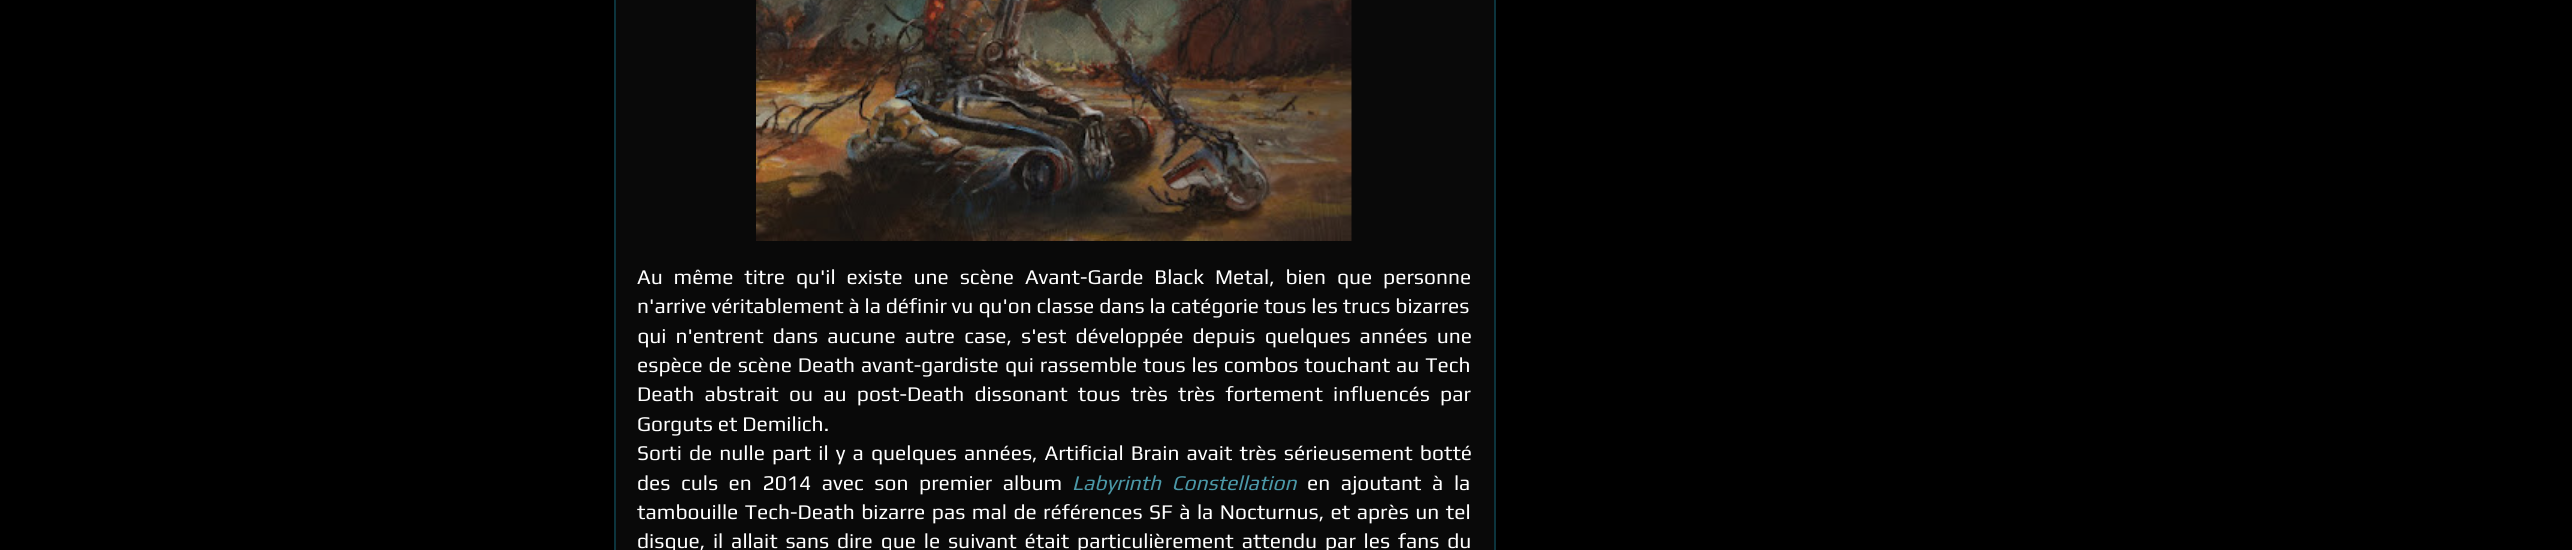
import math
import cairo

surface = cairo.ImageSurface(cairo.FORMAT_RGB24, 2572, 550)
ctx = cairo.Context(surface)
options = cairo.FontOptions()
options.set_hint_metrics(cairo.HINT_METRICS_OFF)
options.set_hint_style(cairo.HINT_STYLE_NONE)
ctx.set_font_options(options)
ctx.set_miter_limit(4)


def spaced_text(x, y, s, letter, word):
    ctx.move_to(x, y)
    for ch in s:
        ctx.show_text(ch)
        ctx.rel_move_to(letter + word * (ch == ' '), 0)


def picture(path, x, y, w, h):
    ctx.save()
    ctx.set_source_surface(cairo.ImageSurface.create_from_png(path), x, y)
    ctx.rectangle(x, y, w, h)
    ctx.fill()
    ctx.restore()


ctx.set_source_rgb(0, 0, 0)
ctx.paint()
ctx.set_source_rgb(0.039, 0.039, 0.039)
ctx.rectangle(615, -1, 880, 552)
ctx.fill_preserve()
ctx.set_source_rgb(0.047, 0.204, 0.239)
ctx.stroke()
picture("img1.png", 756, 0, 596, 241)
ctx.select_font_face("Play")
ctx.set_font_size(21)
ctx.set_source_rgb(1, 1, 1)
spaced_text(637, 284, "Au même titre qu'il existe une scène Avant-Garde Black Metal, bien que personne", 0, 6)
ctx.move_to(637, 313)
ctx.show_text("n'arrive véritablement à la définir vu qu'on classe dans la catégorie tous les trucs bizarres")
spaced_text(637, 343, "qui n'entrent dans aucune autre case, s'est développée depuis quelques années une", 0, 4.25)
spaced_text(637, 372, "espèce de scène Death avant-gardiste qui rassemble tous les combos touchant au Tech", 0, 1)
spaced_text(637, 401, "Death abstrait ou au post-Death dissonant tous très très fortement influencés par", 0, 5.4)
ctx.move_to(637, 431)
ctx.show_text("Gorguts et Demilich.")
spaced_text(637, 460, "Sorti de nulle part il y a quelques années, Artificial Brain avait très sérieusement botté", 0, 2.25)
spaced_text(637, 490, "des culs en 2014 avec son premier album", 0, 5.75)
ctx.select_font_face("Play", cairo.FONT_SLANT_ITALIC)
ctx.set_source_rgb(0.294, 0.596, 0.655)
spaced_text(1072, 490, "Labyrinth Constellation", 0, 5.75)
ctx.select_font_face("Play")
ctx.set_source_rgb(1, 1, 1)
spaced_text(1307, 490, "en ajoutant à la", 0, 5.75)
spaced_text(637, 519, "tambouille Tech-Death bizarre pas mal de références SF à la Nocturnus, et après un tel", 0, 1.6)
spaced_text(637, 548, "disque, il allait sans dire que le suivant était particulièrement attendu par les fans du", 0, 3)
surface.write_to_png("page.png")
